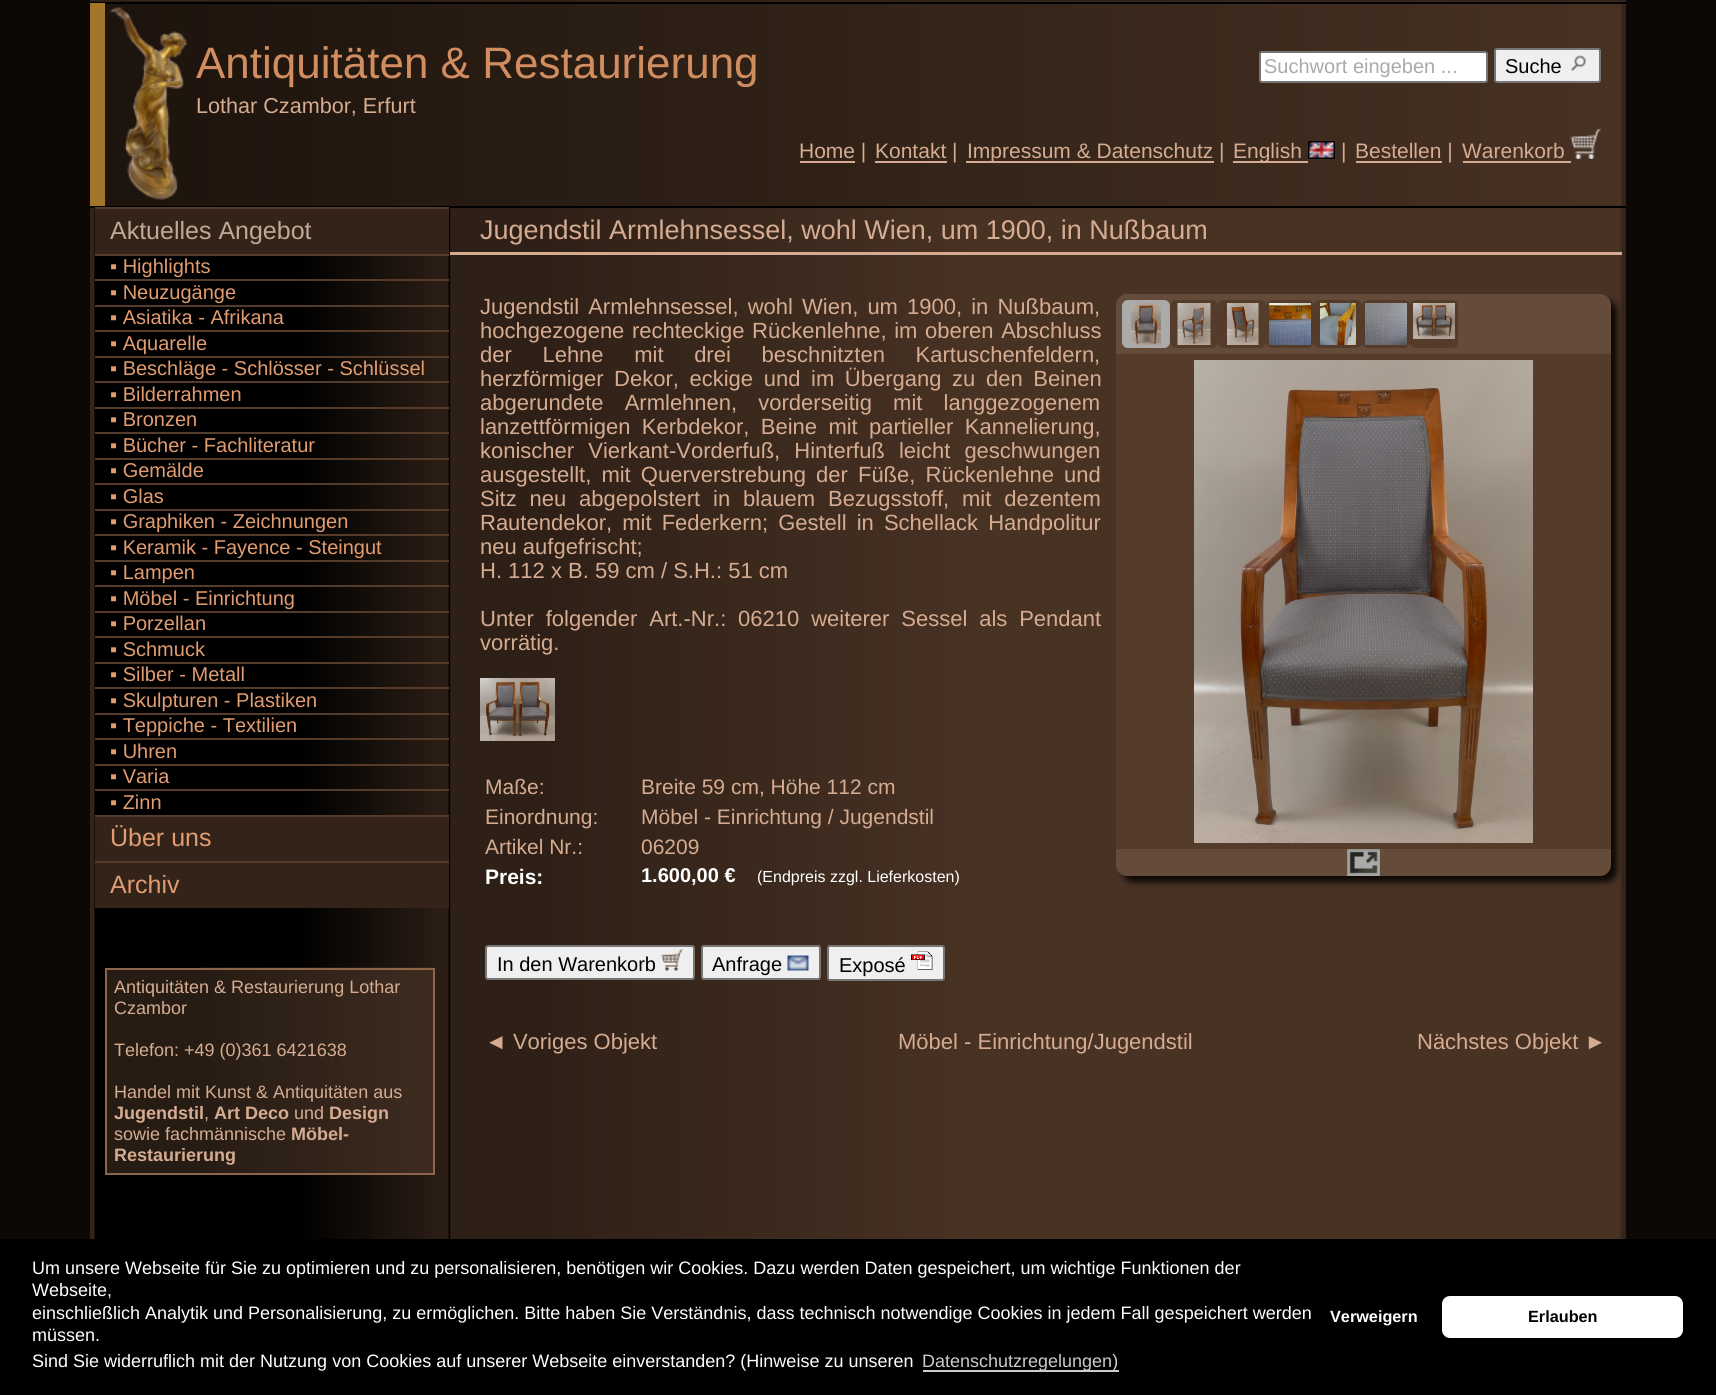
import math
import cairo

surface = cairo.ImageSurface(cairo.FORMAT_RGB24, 1716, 1395)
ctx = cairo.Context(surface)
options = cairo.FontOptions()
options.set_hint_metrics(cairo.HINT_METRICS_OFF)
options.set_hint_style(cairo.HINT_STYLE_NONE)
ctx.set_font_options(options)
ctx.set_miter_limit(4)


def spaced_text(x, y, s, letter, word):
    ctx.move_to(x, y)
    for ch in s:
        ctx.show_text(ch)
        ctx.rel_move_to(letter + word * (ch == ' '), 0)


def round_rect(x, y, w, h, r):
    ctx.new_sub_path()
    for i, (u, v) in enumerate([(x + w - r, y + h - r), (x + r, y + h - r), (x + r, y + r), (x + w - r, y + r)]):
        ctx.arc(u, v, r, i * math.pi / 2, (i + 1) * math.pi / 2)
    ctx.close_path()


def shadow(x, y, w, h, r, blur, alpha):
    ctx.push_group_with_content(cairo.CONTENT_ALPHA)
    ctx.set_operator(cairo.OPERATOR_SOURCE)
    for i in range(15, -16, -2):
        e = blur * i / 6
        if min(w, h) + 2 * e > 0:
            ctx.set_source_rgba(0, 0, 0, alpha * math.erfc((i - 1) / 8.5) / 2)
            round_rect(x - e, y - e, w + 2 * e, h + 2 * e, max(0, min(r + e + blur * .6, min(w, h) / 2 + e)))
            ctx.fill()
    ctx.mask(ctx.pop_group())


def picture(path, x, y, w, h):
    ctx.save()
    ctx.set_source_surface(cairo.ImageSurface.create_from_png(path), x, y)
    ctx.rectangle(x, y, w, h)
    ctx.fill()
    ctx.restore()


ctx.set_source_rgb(0.051, 0.035, 0.024)
ctx.paint()
picture("img1.png", 90, 208, 1536, 1031)
ctx.set_source_rgb(0.2, 0.137, 0.098)
ctx.rectangle(90, 0, 1536, 2)
ctx.fill()
picture("img2.png", 90, 1, 1536, 205)
ctx.set_source_rgb(0, 0, 0)
ctx.rectangle(90, 2, 1536, 2)
ctx.fill()
ctx.rectangle(90, 206, 1536, 2)
ctx.fill()
ctx.set_source_rgb(0.643, 0.463, 0.169)
ctx.rectangle(90, 3, 15, 203)
ctx.fill()
picture("img3.png", 109, 7, 79, 193)
ctx.select_font_face("Liberation Sans")
ctx.set_font_size(44)
ctx.set_source_rgb(0.82, 0.553, 0.376)
ctx.move_to(196, 78)
ctx.show_text("Antiquitäten & Restaurierung")
ctx.set_font_size(21.6)
ctx.set_source_rgb(0.835, 0.675, 0.569)
ctx.move_to(196, 113)
ctx.show_text("Lothar Czambor, Erfurt")
ctx.set_source_rgb(1, 1, 1)
round_rect(1260, 52, 227, 30, 2)
ctx.fill_preserve()
ctx.set_source_rgb(0.463, 0.463, 0.463)
ctx.stroke()
ctx.set_font_size(20)
ctx.set_source_rgb(0.667, 0.667, 0.667)
ctx.move_to(1264, 73)
ctx.show_text("Suchwort eingeben ...")
ctx.set_source_rgb(0.937, 0.937, 0.937)
round_rect(1495, 49, 105, 33, 2)
ctx.fill_preserve()
ctx.set_source_rgb(0.463, 0.463, 0.463)
ctx.stroke()
ctx.set_source_rgb(0, 0, 0)
ctx.move_to(1505, 73)
ctx.show_text("Suche")
picture("img4.png", 1571, 55, 15, 16)
ctx.set_source_rgb(0.835, 0.675, 0.569)
ctx.rectangle(800, 161, 55, 2)
ctx.fill()
ctx.set_font_size(21)
ctx.move_to(799, 158)
ctx.show_text("Home |")
ctx.rectangle(875, 161, 72, 2)
ctx.fill()
ctx.move_to(875, 158)
ctx.show_text("Kontakt |")
ctx.rectangle(966, 161, 248, 2)
ctx.fill()
ctx.move_to(967, 158)
ctx.show_text("Impressum & Datenschutz |")
ctx.rectangle(1233, 161, 75, 2)
ctx.fill()
ctx.move_to(1233, 158)
ctx.show_text("English")
picture("img5.png", 1308, 141, 27, 18)
ctx.move_to(1341, 158)
ctx.show_text("|")
ctx.rectangle(1356, 161, 86, 2)
ctx.fill()
ctx.move_to(1355, 158)
ctx.show_text("Bestellen |")
ctx.move_to(1462, 158)
ctx.show_text("Warenkorb")
ctx.rectangle(1463, 161, 108, 2)
ctx.fill()
picture("img6.png", 1570, 129, 31, 30)
ctx.set_source_rgb(0.2, 0.137, 0.098)
ctx.rectangle(95, 209, 354, 45)
ctx.fill()
ctx.set_source_rgb(0.333, 0.231, 0.165)
ctx.rectangle(95, 207, 354, 2)
ctx.fill()
ctx.set_font_size(25)
ctx.set_source_rgb(0.749, 0.663, 0.584)
ctx.move_to(110, 239)
ctx.show_text("Aktuelles Angebot")
ctx.set_source_rgb(0.333, 0.231, 0.165)
ctx.rectangle(95, 254, 354, 2)
ctx.fill()
ctx.set_font_size(20)
ctx.set_source_rgb(0.882, 0.612, 0.439)
ctx.move_to(110, 273)
ctx.show_text("▪ Highlights")
ctx.set_source_rgb(0.333, 0.231, 0.165)
ctx.rectangle(95, 279, 354, 2)
ctx.fill()
ctx.set_source_rgb(0.882, 0.612, 0.439)
ctx.move_to(110, 299)
ctx.show_text("▪ Neuzugänge")
ctx.set_source_rgb(0.333, 0.231, 0.165)
ctx.rectangle(95, 305, 354, 2)
ctx.fill()
ctx.set_source_rgb(0.882, 0.612, 0.439)
ctx.move_to(110, 324)
ctx.show_text("▪ Asiatika - Afrikana")
ctx.set_source_rgb(0.333, 0.231, 0.165)
ctx.rectangle(95, 330, 354, 2)
ctx.fill()
ctx.set_source_rgb(0.882, 0.612, 0.439)
ctx.move_to(110, 350)
ctx.show_text("▪ Aquarelle")
ctx.set_source_rgb(0.333, 0.231, 0.165)
ctx.rectangle(95, 356, 354, 2)
ctx.fill()
ctx.set_source_rgb(0.882, 0.612, 0.439)
ctx.move_to(110, 375)
ctx.show_text("▪ Beschläge - Schlösser - Schlüssel")
ctx.set_source_rgb(0.333, 0.231, 0.165)
ctx.rectangle(95, 381, 354, 2)
ctx.fill()
ctx.set_source_rgb(0.882, 0.612, 0.439)
ctx.move_to(110, 401)
ctx.show_text("▪ Bilderrahmen")
ctx.set_source_rgb(0.333, 0.231, 0.165)
ctx.rectangle(95, 407, 354, 2)
ctx.fill()
ctx.set_source_rgb(0.882, 0.612, 0.439)
ctx.move_to(110, 426)
ctx.show_text("▪ Bronzen")
ctx.set_source_rgb(0.333, 0.231, 0.165)
ctx.rectangle(95, 432, 354, 2)
ctx.fill()
ctx.set_source_rgb(0.882, 0.612, 0.439)
ctx.move_to(110, 452)
ctx.show_text("▪ Bücher - Fachliteratur")
ctx.set_source_rgb(0.333, 0.231, 0.165)
ctx.rectangle(95, 458, 354, 2)
ctx.fill()
ctx.set_source_rgb(0.882, 0.612, 0.439)
ctx.move_to(110, 477)
ctx.show_text("▪ Gemälde")
ctx.set_source_rgb(0.333, 0.231, 0.165)
ctx.rectangle(95, 483, 354, 2)
ctx.fill()
ctx.set_source_rgb(0.882, 0.612, 0.439)
ctx.move_to(110, 503)
ctx.show_text("▪ Glas")
ctx.set_source_rgb(0.333, 0.231, 0.165)
ctx.rectangle(95, 509, 354, 2)
ctx.fill()
ctx.set_source_rgb(0.882, 0.612, 0.439)
ctx.move_to(110, 528)
ctx.show_text("▪ Graphiken - Zeichnungen")
ctx.set_source_rgb(0.333, 0.231, 0.165)
ctx.rectangle(95, 534, 354, 2)
ctx.fill()
ctx.set_source_rgb(0.882, 0.612, 0.439)
ctx.move_to(110, 554)
ctx.show_text("▪ Keramik - Fayence - Steingut")
ctx.set_source_rgb(0.333, 0.231, 0.165)
ctx.rectangle(95, 560, 354, 2)
ctx.fill()
ctx.set_source_rgb(0.882, 0.612, 0.439)
ctx.move_to(110, 579)
ctx.show_text("▪ Lampen")
ctx.set_source_rgb(0.333, 0.231, 0.165)
ctx.rectangle(95, 585, 354, 2)
ctx.fill()
ctx.set_source_rgb(0.882, 0.612, 0.439)
ctx.move_to(110, 605)
ctx.show_text("▪ Möbel - Einrichtung")
ctx.set_source_rgb(0.333, 0.231, 0.165)
ctx.rectangle(95, 611, 354, 2)
ctx.fill()
ctx.set_source_rgb(0.882, 0.612, 0.439)
ctx.move_to(110, 630)
ctx.show_text("▪ Porzellan")
ctx.set_source_rgb(0.333, 0.231, 0.165)
ctx.rectangle(95, 636, 354, 2)
ctx.fill()
ctx.set_source_rgb(0.882, 0.612, 0.439)
ctx.move_to(110, 656)
ctx.show_text("▪ Schmuck")
ctx.set_source_rgb(0.333, 0.231, 0.165)
ctx.rectangle(95, 662, 354, 2)
ctx.fill()
ctx.set_source_rgb(0.882, 0.612, 0.439)
ctx.move_to(110, 681)
ctx.show_text("▪ Silber - Metall")
ctx.set_source_rgb(0.333, 0.231, 0.165)
ctx.rectangle(95, 687, 354, 2)
ctx.fill()
ctx.set_source_rgb(0.882, 0.612, 0.439)
ctx.move_to(110, 707)
ctx.show_text("▪ Skulpturen - Plastiken")
ctx.set_source_rgb(0.333, 0.231, 0.165)
ctx.rectangle(95, 713, 354, 2)
ctx.fill()
ctx.set_source_rgb(0.882, 0.612, 0.439)
ctx.move_to(110, 732)
ctx.show_text("▪ Teppiche - Textilien")
ctx.set_source_rgb(0.333, 0.231, 0.165)
ctx.rectangle(95, 738, 354, 2)
ctx.fill()
ctx.set_source_rgb(0.882, 0.612, 0.439)
ctx.move_to(110, 758)
ctx.show_text("▪ Uhren")
ctx.set_source_rgb(0.333, 0.231, 0.165)
ctx.rectangle(95, 764, 354, 2)
ctx.fill()
ctx.set_source_rgb(0.882, 0.612, 0.439)
ctx.move_to(110, 783)
ctx.show_text("▪ Varia")
ctx.set_source_rgb(0.333, 0.231, 0.165)
ctx.rectangle(95, 789, 354, 2)
ctx.fill()
ctx.set_source_rgb(0.882, 0.612, 0.439)
ctx.move_to(110, 809)
ctx.show_text("▪ Zinn")
ctx.set_source_rgb(0.2, 0.137, 0.098)
ctx.rectangle(95, 817, 354, 44)
ctx.fill()
ctx.set_source_rgb(0.333, 0.231, 0.165)
ctx.rectangle(95, 815, 354, 2)
ctx.fill()
ctx.set_font_size(25)
ctx.set_source_rgb(0.882, 0.612, 0.439)
ctx.move_to(110, 846)
ctx.show_text("Über uns")
ctx.set_source_rgb(0.2, 0.137, 0.098)
ctx.rectangle(95, 863, 354, 45)
ctx.fill()
ctx.set_source_rgb(0.333, 0.231, 0.165)
ctx.rectangle(95, 861, 354, 2)
ctx.fill()
ctx.set_source_rgb(0.882, 0.612, 0.439)
ctx.move_to(110, 893)
ctx.show_text("Archiv")
ctx.set_source_rgb(0.153, 0.11, 0.078)
ctx.rectangle(107, 970, 94, 203)
ctx.fill()
picture("img7.png", 201, 967, 233, 206)
ctx.rectangle(106, 969, 328, 205)
ctx.set_source_rgb(0.557, 0.392, 0.29)
ctx.stroke()
ctx.set_font_size(18)
ctx.set_source_rgb(0.835, 0.675, 0.569)
ctx.move_to(114, 993)
ctx.show_text("Antiquitäten & Restaurierung Lothar")
ctx.move_to(114, 1014)
ctx.show_text("Czambor")
ctx.move_to(114, 1056)
ctx.show_text("Telefon: +49 (0)361 6421638")
ctx.move_to(114, 1098)
ctx.show_text("Handel mit Kunst & Antiquitäten aus")
ctx.select_font_face("Liberation Sans", cairo.FONT_SLANT_NORMAL, cairo.FONT_WEIGHT_BOLD)
ctx.move_to(114, 1119)
ctx.show_text("Jugendstil")
ctx.select_font_face("Liberation Sans")
ctx.move_to(204, 1119)
ctx.show_text(",")
ctx.select_font_face("Liberation Sans", cairo.FONT_SLANT_NORMAL, cairo.FONT_WEIGHT_BOLD)
ctx.move_to(214, 1119)
ctx.show_text("Art Deco")
ctx.select_font_face("Liberation Sans")
ctx.move_to(294, 1119)
ctx.show_text("und")
ctx.select_font_face("Liberation Sans", cairo.FONT_SLANT_NORMAL, cairo.FONT_WEIGHT_BOLD)
ctx.move_to(329, 1119)
ctx.show_text("Design")
ctx.select_font_face("Liberation Sans")
ctx.move_to(114, 1140)
ctx.show_text("sowie fachmännische")
ctx.select_font_face("Liberation Sans", cairo.FONT_SLANT_NORMAL, cairo.FONT_WEIGHT_BOLD)
ctx.move_to(291, 1140)
ctx.show_text("Möbel-")
ctx.move_to(114, 1161)
ctx.show_text("Restaurierung")
ctx.rectangle(450, 252, 1172, 3)
ctx.fill()
ctx.select_font_face("Liberation Sans")
ctx.set_font_size(27)
ctx.move_to(480, 239)
ctx.show_text("Jugendstil Armlehnsessel, wohl Wien, um 1900, in Nußbaum")
ctx.set_font_size(22)
spaced_text(480, 314, "Jugendstil Armlehnsessel, wohl Wien, um 1900, in Nußbaum,", 0, 3)
spaced_text(480, 338, "hochgezogene rechteckige Rückenlehne, im oberen Abschluss", 0, 1.5)
spaced_text(480, 362, "der Lehne mit drei beschnitzten Kartuschenfeldern,", 0, 24.5)
spaced_text(480, 386, "herzförmiger Dekor, eckige und im Übergang zu den Beinen", 0, 4.5)
spaced_text(480, 410, "abgerundete Armlehnen, vorderseitig mit langgezogenem", 0, 15)
spaced_text(480, 434, "lanzettförmigen Kerbdekor, Beine mit partieller Kannelierung,", 0, 5.25)
spaced_text(480, 458, "konischer Vierkant-Vorderfuß, Hinterfuß leicht geschwungen", 0, 8)
spaced_text(480, 482, "ausgestellt, mit Querverstrebung der Füße, Rückenlehne und", 0, 4)
spaced_text(480, 506, "Sitz neu abgepolstert in blauem Bezugsstoff, mit dezentem", 0, 6.75)
spaced_text(480, 530, "Rautendekor, mit Federkern; Gestell in Schellack Handpolitur", 0, 4)
ctx.move_to(480, 554)
ctx.show_text("neu aufgefrischt;")
ctx.move_to(480, 578)
ctx.show_text("H. 112 x B. 59 cm / S.H.: 51 cm")
spaced_text(480, 626, "Unter folgender Art.-Nr.: 06210 weiterer Sessel als Pendant", 0, 5.75)
ctx.move_to(480, 650)
ctx.show_text("vorrätig.")
picture("img8.png", 480, 678, 75, 63)
ctx.set_font_size(21)
ctx.move_to(485, 794)
ctx.show_text("Maße:")
ctx.move_to(641, 794)
ctx.show_text("Breite 59 cm, Höhe 112 cm")
ctx.move_to(485, 824)
ctx.show_text("Einordnung:")
ctx.move_to(641, 824)
ctx.show_text("Möbel - Einrichtung / Jugendstil")
ctx.move_to(485, 854)
ctx.show_text("Artikel Nr.:")
ctx.move_to(641, 854)
ctx.show_text("06209")
ctx.select_font_face("Liberation Sans", cairo.FONT_SLANT_NORMAL, cairo.FONT_WEIGHT_BOLD)
ctx.set_source_rgb(1, 1, 1)
ctx.move_to(485, 884)
ctx.show_text("Preis:")
ctx.set_font_size(20)
ctx.move_to(641, 882)
ctx.show_text("1.600,00 €")
ctx.select_font_face("Liberation Sans")
ctx.set_font_size(16)
ctx.move_to(757, 882)
ctx.show_text("(Endpreis zzgl. Lieferkosten)")
ctx.set_source_rgb(0.937, 0.937, 0.937)
round_rect(486, 946, 208, 33, 2)
ctx.fill_preserve()
ctx.set_source_rgb(0.463, 0.463, 0.463)
ctx.stroke()
ctx.set_font_size(20)
ctx.set_source_rgb(0, 0, 0)
ctx.move_to(497, 971)
ctx.show_text("In den Warenkorb")
picture("img9.png", 661, 949, 22, 22)
ctx.set_source_rgb(0.937, 0.937, 0.937)
round_rect(702, 946, 118, 33, 2)
ctx.fill_preserve()
ctx.set_source_rgb(0.463, 0.463, 0.463)
ctx.stroke()
ctx.set_source_rgb(0, 0, 0)
ctx.move_to(712, 971)
ctx.show_text("Anfrage")
picture("img10.png", 787, 955, 22, 16)
ctx.set_source_rgb(0.937, 0.937, 0.937)
round_rect(828, 946, 116, 34, 2)
ctx.fill_preserve()
ctx.set_source_rgb(0.463, 0.463, 0.463)
ctx.stroke()
ctx.set_source_rgb(0, 0, 0)
ctx.move_to(839, 972)
ctx.show_text("Exposé")
picture("img11.png", 911, 951, 22, 19)
ctx.set_source_rgb(0.051, 0.035, 0.024)
shadow(1122, 300, 495, 582, 11, 3, 1)
ctx.set_source_rgb(0.396, 0.294, 0.227)
ctx.new_path()
ctx.move_to(1127, 294)
ctx.line_to(1600, 294)
ctx.curve_to(1606, 294, 1611, 299, 1611, 305)
ctx.line_to(1611, 354)
ctx.line_to(1116, 354)
ctx.line_to(1116, 305)
ctx.curve_to(1116, 299, 1121, 294, 1127, 294)
ctx.close_path()
ctx.fill()
ctx.set_source_rgb(0.667, 0.667, 0.667)
round_rect(1123.5, 301.5, 45, 45, 4.5)
ctx.fill_preserve()
ctx.set_line_width(3)
ctx.stroke()
picture("img12.png", 1131, 303, 30, 42)
ctx.set_source_rgb(0.333, 0.231, 0.165)
round_rect(1171.5, 301.5, 45, 45, 4.5)
ctx.fill_preserve()
ctx.stroke()
picture("img13.png", 1177, 303, 34, 42)
round_rect(1219.5, 301.5, 45, 45, 4.5)
ctx.fill_preserve()
ctx.stroke()
picture("img14.png", 1227, 303, 32, 42)
round_rect(1267.5, 301.5, 45, 45, 4.5)
ctx.stroke()
picture("img15.png", 1269, 303, 42, 42)
round_rect(1315.5, 301.5, 45, 45, 4.5)
ctx.fill_preserve()
ctx.stroke()
picture("img16.png", 1320, 303, 36, 42)
round_rect(1363.5, 301.5, 45, 45, 4.5)
ctx.stroke()
picture("img17.png", 1365, 303, 42, 42)
round_rect(1411.5, 301.5, 45, 45, 4.5)
ctx.fill_preserve()
ctx.stroke()
picture("img18.png", 1413, 303, 42, 36)
ctx.rectangle(1116, 354, 495, 495)
ctx.fill()
picture("img19.png", 1194, 360, 339, 483)
ctx.set_source_rgb(0.396, 0.294, 0.227)
ctx.new_path()
ctx.move_to(1116, 849)
ctx.line_to(1611, 849)
ctx.line_to(1611, 865)
ctx.curve_to(1611, 871, 1606, 876, 1600, 876)
ctx.line_to(1127, 876)
ctx.curve_to(1121, 876, 1116, 871, 1116, 865)
ctx.close_path()
ctx.fill()
ctx.set_source_rgb(0.667, 0.667, 0.667)
ctx.rectangle(1348, 850, 31, 25)
ctx.fill()
picture("img20.png", 1347, 849, 33, 27)
ctx.set_font_size(22)
ctx.set_source_rgb(0.835, 0.675, 0.569)
ctx.move_to(485, 1049)
ctx.show_text("◄ Voriges Objekt")
ctx.move_to(898, 1049)
ctx.show_text("Möbel - Einrichtung/Jugendstil")
ctx.move_to(1417, 1049)
ctx.show_text("Nächstes Objekt ►")
ctx.set_source_rgb(0, 0, 0)
ctx.rectangle(0, 1239, 1716, 156)
ctx.fill()
ctx.set_font_size(18)
ctx.set_source_rgb(1, 1, 1)
ctx.move_to(32, 1274)
ctx.show_text("Um unsere Webseite für Sie zu optimieren und zu personalisieren, benötigen wir Cookies. Dazu werden Daten gespeichert, um wichtige Funktionen der")
ctx.move_to(32, 1296)
ctx.show_text("Webseite,")
ctx.move_to(32, 1319)
ctx.show_text("einschließlich Analytik und Personalisierung, zu ermöglichen. Bitte haben Sie Verständnis, dass technisch notwendige Cookies in jedem Fall gespeichert werden")
ctx.move_to(32, 1341)
ctx.show_text("müssen.")
ctx.move_to(32, 1367)
ctx.show_text("Sind Sie widerruflich mit der Nutzung von Cookies auf unserer Webseite einverstanden? (Hinweise zu unseren")
ctx.set_source_rgb(0.8, 0.8, 0.8)
ctx.rectangle(923, 1370, 196, 2)
ctx.fill()
ctx.move_to(922, 1367)
ctx.show_text("Datenschutzregelungen)")
ctx.select_font_face("Liberation Sans", cairo.FONT_SLANT_NORMAL, cairo.FONT_WEIGHT_BOLD)
ctx.set_font_size(16.25)
ctx.set_source_rgb(1, 1, 1)
ctx.move_to(1330, 1322)
ctx.show_text("Verweigern")
round_rect(1442, 1296, 241, 42, 8)
ctx.fill()
ctx.set_source_rgb(0, 0, 0)
ctx.move_to(1528, 1322)
ctx.show_text("Erlauben")
surface.write_to_png("page.png")
